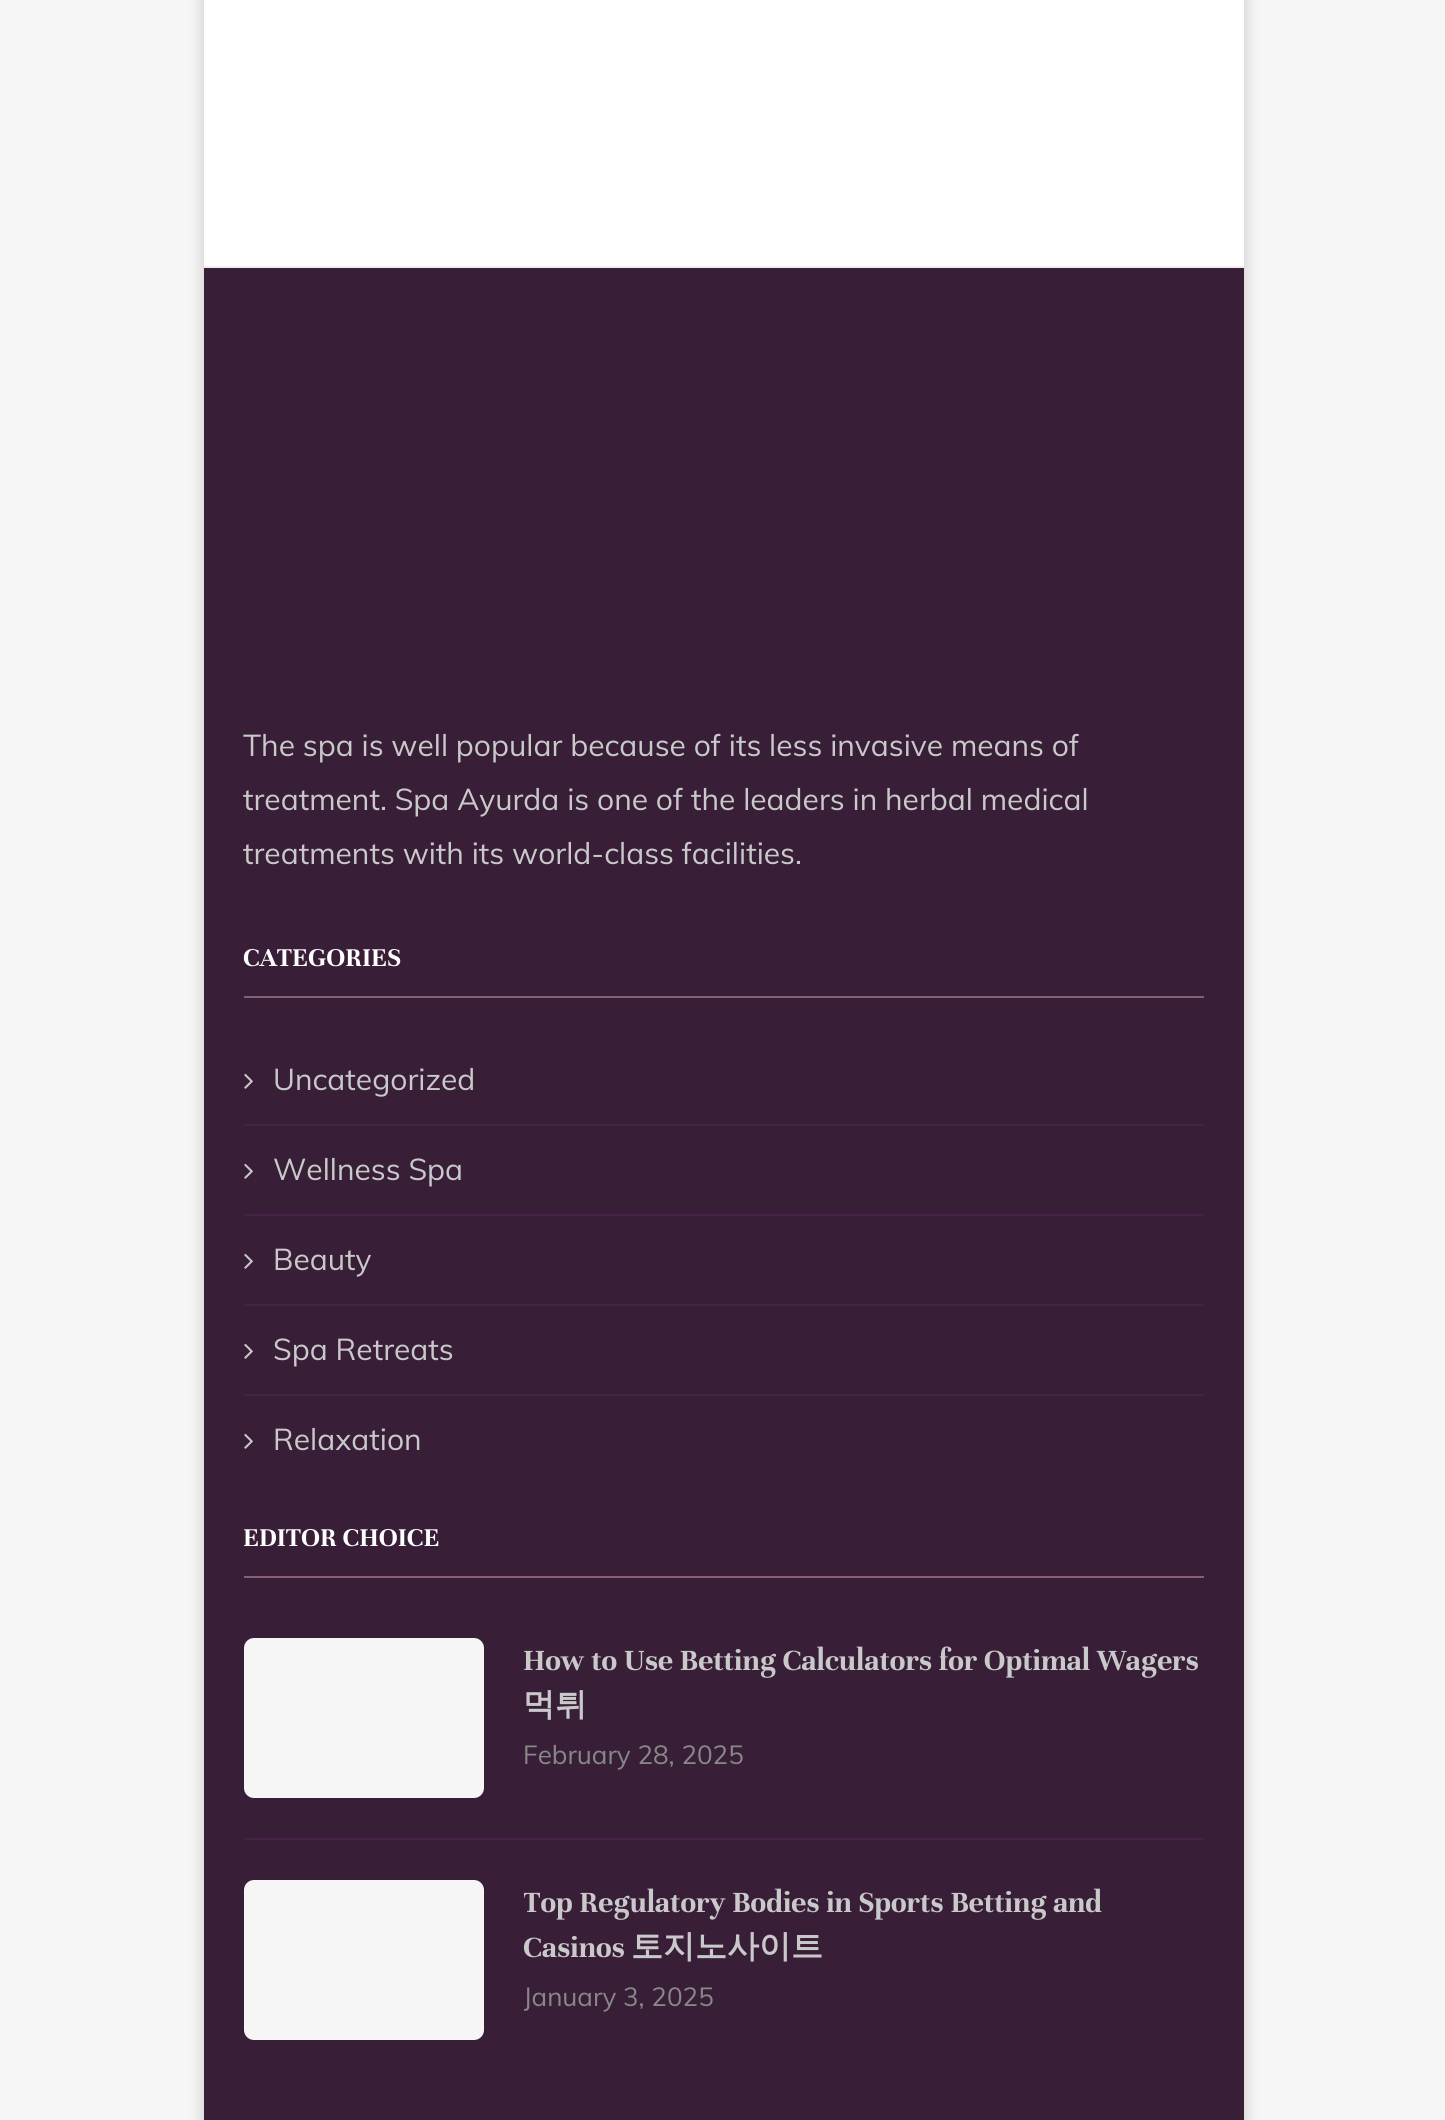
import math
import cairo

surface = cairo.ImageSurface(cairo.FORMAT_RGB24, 1445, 2120)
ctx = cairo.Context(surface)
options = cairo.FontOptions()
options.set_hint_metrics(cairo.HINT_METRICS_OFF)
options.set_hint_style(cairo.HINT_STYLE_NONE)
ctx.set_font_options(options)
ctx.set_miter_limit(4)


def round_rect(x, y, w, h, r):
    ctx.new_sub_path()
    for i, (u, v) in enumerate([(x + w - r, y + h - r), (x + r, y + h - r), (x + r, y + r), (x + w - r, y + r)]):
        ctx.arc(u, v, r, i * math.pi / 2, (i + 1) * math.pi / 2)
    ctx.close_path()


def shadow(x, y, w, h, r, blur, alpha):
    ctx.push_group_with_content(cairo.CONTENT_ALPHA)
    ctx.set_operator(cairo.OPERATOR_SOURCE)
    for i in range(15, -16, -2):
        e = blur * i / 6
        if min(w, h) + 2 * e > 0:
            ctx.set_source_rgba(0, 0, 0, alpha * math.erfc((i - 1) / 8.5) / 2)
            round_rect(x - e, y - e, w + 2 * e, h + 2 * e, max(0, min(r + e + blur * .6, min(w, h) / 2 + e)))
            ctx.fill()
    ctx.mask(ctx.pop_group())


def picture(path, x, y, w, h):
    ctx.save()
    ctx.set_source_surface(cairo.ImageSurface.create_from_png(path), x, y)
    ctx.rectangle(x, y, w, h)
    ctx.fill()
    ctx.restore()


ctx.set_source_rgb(0.961, 0.961, 0.961)
ctx.paint()
ctx.set_source_rgb(0, 0, 0)
shadow(204, -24, 1040, 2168, 0, 8, 0.2)
ctx.set_source_rgb(1, 1, 1)
ctx.rectangle(204, 0, 1040, 266)
ctx.fill()
ctx.set_source_rgb(0.22, 0.118, 0.216)
ctx.rectangle(204, 268, 1040, 1852)
ctx.fill()
ctx.set_source_rgb(0.933, 0.933, 0.933)
ctx.rectangle(204, 266, 1040, 2)
ctx.fill()
ctx.select_font_face("Muli")
ctx.set_font_size(30)
ctx.set_source_rgb(0.788, 0.788, 0.788)
ctx.move_to(243, 756)
ctx.show_text("The spa is well popular because of its less invasive means of")
ctx.move_to(243, 810)
ctx.show_text("treatment. Spa Ayurda is one of the leaders in herbal medical")
ctx.move_to(243, 864)
ctx.show_text("treatments with its world-class facilities.")
ctx.set_source_rgb(0.529, 0.38, 0.463)
ctx.rectangle(244, 996, 960, 2)
ctx.fill()
ctx.select_font_face("Unna", cairo.FONT_SLANT_NORMAL, cairo.FONT_WEIGHT_BOLD)
ctx.set_font_size(28)
ctx.set_source_rgb(1, 1, 1)
ctx.move_to(243, 966)
ctx.show_text("CATEGORIES")
ctx.set_source_rgb(0.278, 0.129, 0.278)
ctx.rectangle(244, 1124, 960, 2)
ctx.fill()
picture("img1.png", 244, 1073, 9, 16)
ctx.select_font_face("Muli")
ctx.set_font_size(30)
ctx.set_source_rgb(0.788, 0.788, 0.788)
ctx.move_to(273, 1090)
ctx.show_text("Uncategorized")
ctx.set_source_rgb(0.278, 0.129, 0.278)
ctx.rectangle(244, 1214, 960, 2)
ctx.fill()
picture("img1.png", 244, 1163, 9, 16)
ctx.set_source_rgb(0.788, 0.788, 0.788)
ctx.move_to(273, 1180)
ctx.show_text("Wellness Spa")
ctx.set_source_rgb(0.278, 0.129, 0.278)
ctx.rectangle(244, 1304, 960, 2)
ctx.fill()
picture("img1.png", 244, 1253, 9, 16)
ctx.set_source_rgb(0.788, 0.788, 0.788)
ctx.move_to(273, 1270)
ctx.show_text("Beauty")
ctx.set_source_rgb(0.278, 0.129, 0.278)
ctx.rectangle(244, 1394, 960, 2)
ctx.fill()
picture("img1.png", 244, 1343, 9, 16)
ctx.set_source_rgb(0.788, 0.788, 0.788)
ctx.move_to(273, 1360)
ctx.show_text("Spa Retreats")
picture("img1.png", 244, 1433, 9, 16)
ctx.move_to(273, 1450)
ctx.show_text("Relaxation")
ctx.set_source_rgb(0.529, 0.38, 0.463)
ctx.rectangle(244, 1576, 960, 2)
ctx.fill()
ctx.select_font_face("Unna", cairo.FONT_SLANT_NORMAL, cairo.FONT_WEIGHT_BOLD)
ctx.set_font_size(28)
ctx.set_source_rgb(1, 1, 1)
ctx.move_to(243, 1546)
ctx.show_text("EDITOR CHOICE")
ctx.set_source_rgb(0.278, 0.129, 0.278)
ctx.rectangle(244, 1838, 960, 2)
ctx.fill()
ctx.set_source_rgb(0.961, 0.961, 0.961)
round_rect(244, 1638, 240, 160, 10)
ctx.fill()
ctx.set_font_size(32)
ctx.set_source_rgb(0.788, 0.788, 0.788)
ctx.move_to(523, 1670)
ctx.show_text("How to Use Betting Calculators for Optimal Wagers")
ctx.select_font_face("WenQuanYi Zen Hei", cairo.FONT_SLANT_NORMAL, cairo.FONT_WEIGHT_BOLD)
ctx.move_to(523, 1715)
ctx.show_text("먹튀")
ctx.select_font_face("Muli")
ctx.set_font_size(26)
ctx.set_source_rgb(0.533, 0.533, 0.533)
ctx.move_to(523, 1764)
ctx.show_text("February 28, 2025")
ctx.set_source_rgb(0.961, 0.961, 0.961)
round_rect(244, 1880, 240, 160, 10)
ctx.fill()
ctx.save()
ctx.rectangle(524, 1880, 680, 134)
ctx.clip()
ctx.select_font_face("Unna", cairo.FONT_SLANT_NORMAL, cairo.FONT_WEIGHT_BOLD)
ctx.set_font_size(32)
ctx.set_source_rgb(0.788, 0.788, 0.788)
ctx.move_to(523, 1912)
ctx.show_text("Top Regulatory Bodies in Sports Betting and")
ctx.restore()
ctx.select_font_face("Unna", cairo.FONT_SLANT_NORMAL, cairo.FONT_WEIGHT_BOLD)
ctx.set_font_size(32)
ctx.set_source_rgb(0.788, 0.788, 0.788)
ctx.move_to(523, 1957)
ctx.show_text("Casinos")
ctx.select_font_face("WenQuanYi Zen Hei", cairo.FONT_SLANT_NORMAL, cairo.FONT_WEIGHT_BOLD)
ctx.move_to(631, 1957)
ctx.show_text("토지노사이트")
ctx.save()
ctx.rectangle(524, 1880, 680, 134)
ctx.clip()
ctx.select_font_face("Muli")
ctx.set_font_size(26)
ctx.set_source_rgb(0.533, 0.533, 0.533)
ctx.move_to(523, 2006)
ctx.show_text("January 3, 2025")
ctx.restore()
surface.write_to_png("page.png")
